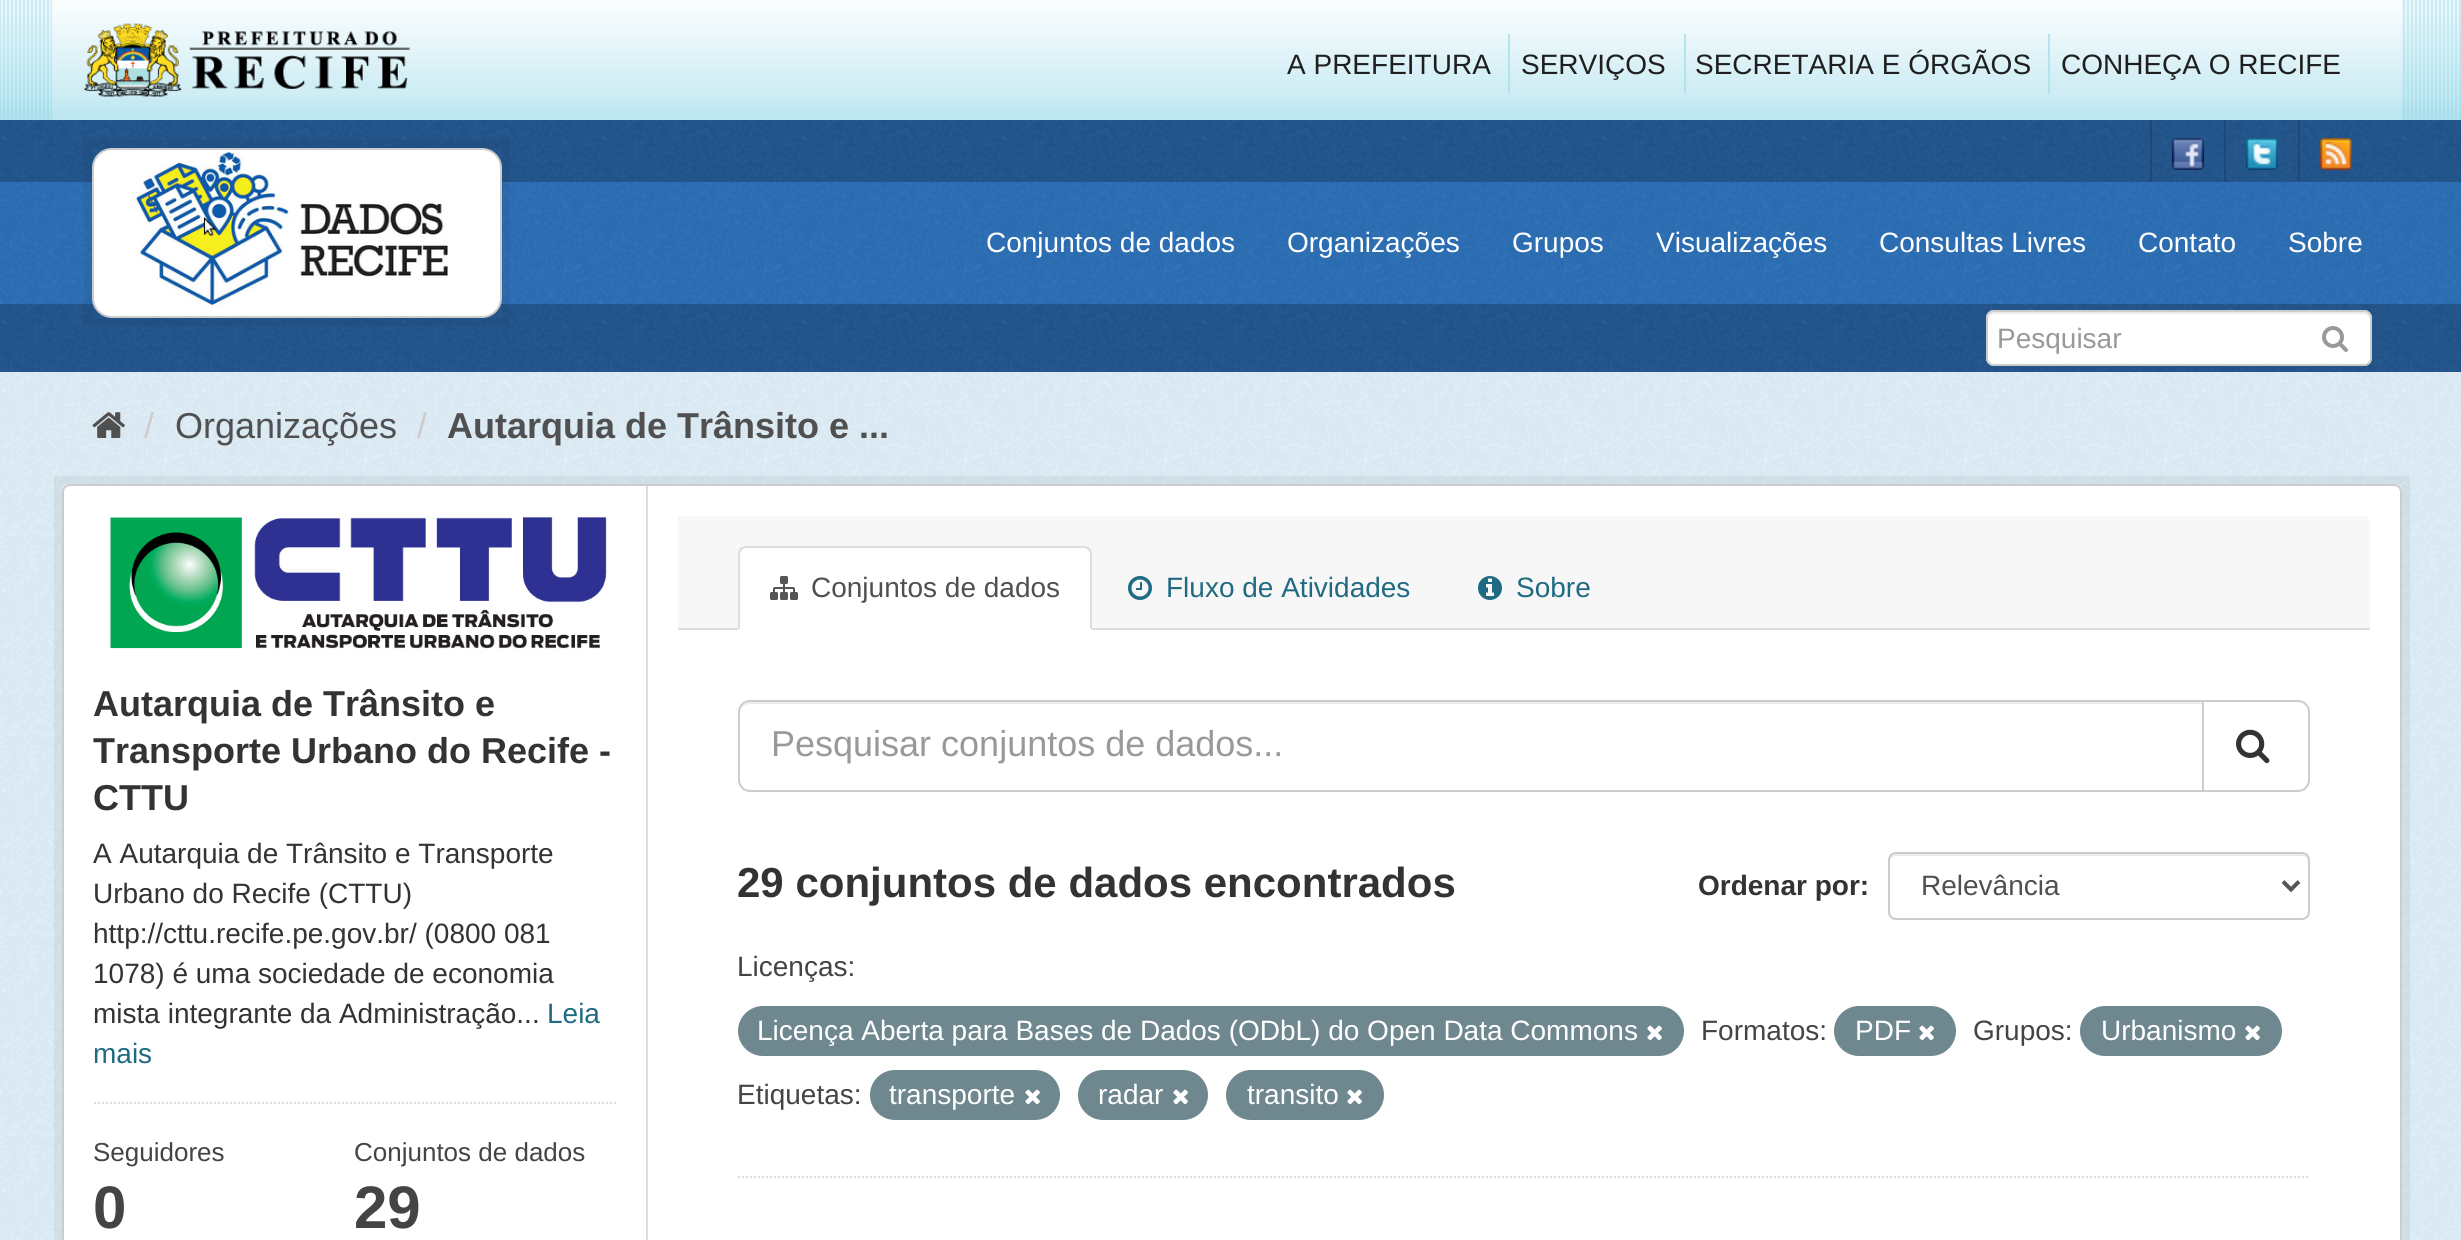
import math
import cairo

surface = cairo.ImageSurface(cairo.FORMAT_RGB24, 2461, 1240)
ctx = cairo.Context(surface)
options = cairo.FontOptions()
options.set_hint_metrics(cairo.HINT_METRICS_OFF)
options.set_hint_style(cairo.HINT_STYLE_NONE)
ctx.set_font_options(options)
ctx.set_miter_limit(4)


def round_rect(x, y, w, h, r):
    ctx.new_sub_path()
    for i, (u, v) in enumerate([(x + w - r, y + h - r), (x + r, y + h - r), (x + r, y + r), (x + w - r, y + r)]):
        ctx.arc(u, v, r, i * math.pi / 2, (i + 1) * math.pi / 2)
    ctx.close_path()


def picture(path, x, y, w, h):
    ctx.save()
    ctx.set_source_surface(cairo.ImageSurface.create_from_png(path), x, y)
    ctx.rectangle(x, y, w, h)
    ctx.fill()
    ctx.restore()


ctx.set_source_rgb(1, 1, 1)
ctx.paint()
picture("img1.png", 0, 0, 2461, 120)
picture("img2.png", 52, 0, 2350, 120)
picture("img3.png", 84, 23, 326, 74)
ctx.select_font_face("Liberation Sans")
ctx.set_font_size(28)
ctx.set_source_rgb(0.122, 0.122, 0.122)
ctx.move_to(1287, 74)
ctx.show_text("A PREFEITURA")
ctx.set_source_rgb(0.698, 0.894, 0.941)
ctx.rectangle(1508, 34, 2, 60)
ctx.fill()
ctx.set_source_rgb(0.122, 0.122, 0.122)
ctx.move_to(1521, 74)
ctx.show_text("SERVIÇOS")
ctx.set_source_rgb(0.698, 0.894, 0.941)
ctx.rectangle(1684, 34, 2, 60)
ctx.fill()
ctx.set_source_rgb(0.122, 0.122, 0.122)
ctx.move_to(1695, 74)
ctx.show_text("SECRETARIA E ÓRGÃOS")
ctx.set_source_rgb(0.698, 0.894, 0.941)
ctx.rectangle(2048, 34, 2, 60)
ctx.fill()
ctx.set_source_rgb(0.122, 0.122, 0.122)
ctx.move_to(2061, 74)
ctx.show_text("CONHEÇA O RECIFE")
ctx.set_source_rgb(0.133, 0.337, 0.553)
ctx.rectangle(0, 120, 2461, 62)
ctx.fill()
picture("img4.png", 0, 120, 2461, 62)
ctx.set_source_rgb(0.114, 0.286, 0.471)
ctx.rectangle(2150, 120, 2, 62)
ctx.fill()
picture("img5.png", 2172, 138, 32, 32)
ctx.rectangle(2224, 120, 2, 62)
ctx.fill()
picture("img6.png", 2246, 138, 32, 32)
ctx.rectangle(2298, 120, 2, 62)
ctx.fill()
picture("img7.png", 2320, 138, 32, 32)
ctx.set_source_rgb(0.173, 0.435, 0.714)
ctx.rectangle(0, 182, 2461, 122)
ctx.fill()
picture("img8.png", 0, 182, 2461, 122)
ctx.set_source_rgb(0.133, 0.337, 0.553)
ctx.rectangle(0, 304, 2461, 68)
ctx.fill()
picture("img10.png", 0, 304, 2461, 68)
ctx.rectangle(88, 144, 418, 178)
ctx.set_source_rgba(0, 0, 0, 0.05)
ctx.set_line_width(8)
ctx.stroke()
ctx.set_source_rgb(1, 1, 1)
round_rect(93, 149, 408, 168, 19)
ctx.fill_preserve()
ctx.set_source_rgb(0.8, 0.8, 0.8)
ctx.set_line_width(2)
ctx.stroke()
picture("img9.png", 134, 150, 314, 157)
ctx.set_source_rgb(1, 1, 1)
ctx.move_to(986, 252)
ctx.show_text("Conjuntos de dados")
ctx.move_to(1287, 252)
ctx.show_text("Organizações")
ctx.move_to(1512, 252)
ctx.show_text("Grupos")
ctx.move_to(1656, 252)
ctx.show_text("Visualizações")
ctx.move_to(1879, 252)
ctx.show_text("Consultas Livres")
ctx.move_to(2138, 252)
ctx.show_text("Contato")
ctx.move_to(2288, 252)
ctx.show_text("Sobre")
round_rect(1986, 310, 386, 56, 8)
ctx.fill()
ctx.set_source_rgb(0.925, 0.925, 0.925)
ctx.new_path()
ctx.move_to(1994, 314)
ctx.line_to(2364, 314)
ctx.curve_to(2367, 314, 2370, 317, 2370, 320)
ctx.curve_to(2370, 316, 2369, 312, 2364, 312)
ctx.line_to(1994, 312)
ctx.curve_to(1989, 312, 1988, 316, 1988, 320)
ctx.curve_to(1988, 317, 1991, 314, 1994, 314)
ctx.close_path()
ctx.fill()
round_rect(1987, 311, 384, 54, 7)
ctx.set_source_rgb(0.8, 0.8, 0.8)
ctx.stroke()
ctx.set_source_rgb(0.6, 0.6, 0.6)
ctx.move_to(1997, 348)
ctx.show_text("Pesquisar")
picture("img11.png", 2322, 326, 26, 26)
ctx.set_source_rgb(0.878, 0.941, 0.976)
ctx.rectangle(0, 372, 2461, 868)
ctx.fill()
picture("img12.png", 0, 372, 2461, 868)
picture("img13.png", 92, 412, 33, 26)
ctx.set_font_size(36)
ctx.set_source_rgb(0.8, 0.8, 0.8)
ctx.move_to(144, 438)
ctx.show_text("/")
ctx.set_source_rgb(0.314, 0.314, 0.314)
ctx.move_to(175, 438)
ctx.show_text("Organizações")
ctx.set_source_rgb(0.8, 0.8, 0.8)
ctx.move_to(417, 438)
ctx.show_text("/")
ctx.select_font_face("Liberation Sans", cairo.FONT_SLANT_NORMAL, cairo.FONT_WEIGHT_BOLD)
ctx.set_source_rgb(0.314, 0.314, 0.314)
ctx.move_to(447, 438)
ctx.show_text("Autarquia de Trânsito e ...")
ctx.rectangle(58, 480, 2348, 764)
ctx.set_source_rgba(0, 0, 0, 0.05)
ctx.set_line_width(8)
ctx.stroke()
ctx.set_source_rgb(1, 1, 1)
round_rect(63, 485, 2338, 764, 7)
ctx.fill_preserve()
ctx.set_source_rgb(0.8, 0.8, 0.8)
ctx.set_line_width(2)
ctx.stroke()
picture("img14.png", 110, 517, 497, 132)
ctx.set_source_rgb(0.2, 0.2, 0.2)
ctx.move_to(93, 716)
ctx.show_text("Autarquia de Trânsito e")
ctx.move_to(93, 763)
ctx.show_text("Transporte Urbano do Recife -")
ctx.move_to(93, 810)
ctx.show_text("CTTU")
ctx.select_font_face("Liberation Sans")
ctx.set_font_size(28)
ctx.move_to(93, 863)
ctx.show_text("A Autarquia de Trânsito e Transporte")
ctx.move_to(93, 903)
ctx.show_text("Urbano do Recife (CTTU)")
ctx.move_to(93, 943)
ctx.show_text("http://cttu.recife.pe.gov.br/ (0800 081")
ctx.move_to(93, 983)
ctx.show_text("1078) é uma sociedade de economia")
ctx.move_to(93, 1023)
ctx.show_text("mista integrante da Administração...")
ctx.set_source_rgb(0.125, 0.42, 0.51)
ctx.move_to(547, 1023)
ctx.show_text("Leia")
ctx.move_to(93, 1063)
ctx.show_text("mais")
ctx.new_path()
ctx.move_to(94, 1103)
ctx.line_to(616, 1103)
ctx.set_source_rgb(0.867, 0.867, 0.867)
ctx.set_dash([2, 2])
ctx.stroke()
ctx.set_font_size(26)
ctx.set_source_rgb(0.267, 0.267, 0.267)
ctx.move_to(93, 1161)
ctx.show_text("Seguidores")
ctx.select_font_face("Liberation Sans", cairo.FONT_SLANT_NORMAL, cairo.FONT_WEIGHT_BOLD)
ctx.set_font_size(60)
ctx.move_to(93, 1228)
ctx.show_text("0")
ctx.select_font_face("Liberation Sans")
ctx.set_font_size(26)
ctx.move_to(354, 1161)
ctx.show_text("Conjuntos de dados")
ctx.select_font_face("Liberation Sans", cairo.FONT_SLANT_NORMAL, cairo.FONT_WEIGHT_BOLD)
ctx.set_font_size(60)
ctx.move_to(354, 1228)
ctx.show_text("29")
ctx.set_source_rgb(0.867, 0.867, 0.867)
ctx.rectangle(646, 486, 2, 754)
ctx.fill()
ctx.set_source_rgb(0.965, 0.965, 0.965)
ctx.new_path()
ctx.move_to(678, 516)
ctx.line_to(2364, 516)
ctx.curve_to(2367.5, 516, 2370, 518.5, 2370, 522)
ctx.line_to(2370, 630)
ctx.line_to(678, 630)
ctx.close_path()
ctx.fill()
ctx.set_source_rgb(0.867, 0.867, 0.867)
ctx.rectangle(678, 628, 1692, 2)
ctx.fill()
ctx.set_source_rgb(1, 1, 1)
ctx.new_path()
ctx.move_to(746, 546)
ctx.line_to(1084, 546)
ctx.curve_to(1088.5, 546, 1092, 549.5, 1092, 554)
ctx.line_to(1092, 630)
ctx.line_to(738, 630)
ctx.line_to(738, 554)
ctx.curve_to(738, 549.5, 741.5, 546, 746, 546)
ctx.close_path()
ctx.fill()
ctx.set_source_rgb(0.867, 0.867, 0.867)
ctx.new_path()
ctx.move_to(746, 546)
ctx.curve_to(744, 546, 742, 547, 740, 548)
ctx.line_to(742, 550)
ctx.curve_to(743, 549, 744, 548, 746, 548)
ctx.line_to(1084, 548)
ctx.curve_to(1086, 548, 1087, 549, 1088, 550)
ctx.line_to(1090, 548)
ctx.curve_to(1088, 547, 1086, 546, 1084, 546)
ctx.close_path()
ctx.fill()
ctx.new_path()
ctx.move_to(1092, 630)
ctx.line_to(1092, 554)
ctx.curve_to(1092, 552, 1091, 550, 1090, 548)
ctx.line_to(1088, 550)
ctx.line_to(1090, 553)
ctx.line_to(1090, 628)
ctx.close_path()
ctx.fill()
ctx.new_path()
ctx.move_to(738, 630)
ctx.line_to(740, 628)
ctx.line_to(740, 553)
ctx.line_to(742, 550)
ctx.line_to(740, 548)
ctx.curve_to(739, 550, 738, 552, 738, 554)
ctx.close_path()
ctx.fill()
picture("img15.png", 770, 576, 28, 24)
ctx.select_font_face("Liberation Sans")
ctx.set_font_size(28)
ctx.set_source_rgb(0.314, 0.314, 0.314)
ctx.move_to(811, 597)
ctx.show_text("Conjuntos de dados")
picture("img16.png", 1128, 576, 24, 24)
ctx.set_source_rgb(0.125, 0.42, 0.51)
ctx.move_to(1166, 597)
ctx.show_text("Fluxo de Atividades")
picture("img17.png", 1478, 576, 24, 24)
ctx.move_to(1516, 597)
ctx.show_text("Sobre")
ctx.new_path()
ctx.move_to(738, 1177)
ctx.line_to(2310, 1177)
ctx.set_source_rgb(0.867, 0.867, 0.867)
ctx.stroke()
ctx.set_source_rgb(0.925, 0.925, 0.925)
ctx.new_path()
ctx.move_to(750, 704)
ctx.line_to(2202, 704)
ctx.line_to(2202, 702)
ctx.line_to(750, 702)
ctx.curve_to(743, 702, 740, 708, 740, 714)
ctx.curve_to(740, 708, 744, 704, 750, 704)
ctx.close_path()
ctx.fill()
ctx.new_path()
ctx.move_to(750, 701)
ctx.line_to(2203, 701)
ctx.line_to(2203, 791)
ctx.line_to(750, 791)
ctx.curve_to(744, 791, 739, 786, 739, 780)
ctx.line_to(739, 712)
ctx.curve_to(739, 706, 744, 701, 750, 701)
ctx.close_path()
ctx.set_source_rgb(0.8, 0.8, 0.8)
ctx.set_dash([])
ctx.stroke()
ctx.set_font_size(36)
ctx.set_source_rgb(0.6, 0.6, 0.6)
ctx.move_to(771, 756)
ctx.show_text("Pesquisar conjuntos de dados...")
ctx.set_source_rgb(1, 1, 1)
ctx.new_path()
ctx.move_to(2203, 701)
ctx.line_to(2298, 701)
ctx.curve_to(2304, 701, 2309, 706, 2309, 712)
ctx.line_to(2309, 780)
ctx.curve_to(2309, 786, 2304, 791, 2298, 791)
ctx.line_to(2203, 791)
ctx.close_path()
ctx.fill_preserve()
ctx.set_source_rgb(0.8, 0.8, 0.8)
ctx.stroke()
picture("img18.png", 2236, 729, 34, 35)
ctx.select_font_face("Liberation Sans", cairo.FONT_SLANT_NORMAL, cairo.FONT_WEIGHT_BOLD)
ctx.set_font_size(42)
ctx.set_source_rgb(0.2, 0.2, 0.2)
ctx.move_to(737, 897)
ctx.show_text("29 conjuntos de dados encontrados")
ctx.set_font_size(28)
ctx.move_to(1698, 895)
ctx.show_text("Ordenar por:")
ctx.set_source_rgb(0.925, 0.925, 0.925)
ctx.new_path()
ctx.move_to(1896, 856)
ctx.line_to(2302, 856)
ctx.curve_to(2305, 856, 2308, 859, 2308, 862)
ctx.line_to(2308, 860)
ctx.curve_to(2308, 857, 2305, 854, 2302, 854)
ctx.line_to(1896, 854)
ctx.curve_to(1893, 854, 1890, 857, 1890, 860)
ctx.line_to(1890, 862)
ctx.curve_to(1890, 859, 1893, 856, 1896, 856)
ctx.close_path()
ctx.fill()
round_rect(1889, 853, 420, 66, 7)
ctx.set_source_rgb(0.8, 0.8, 0.8)
ctx.stroke()
ctx.new_path()
ctx.move_to(2283, 881.5)
ctx.line_to(2291, 889.5)
ctx.line_to(2299, 881.5)
ctx.set_source_rgb(0.333, 0.333, 0.333)
ctx.set_line_width(4)
ctx.stroke()
ctx.select_font_face("Liberation Sans")
ctx.set_source_rgb(0.314, 0.314, 0.314)
ctx.move_to(1921, 895)
ctx.show_text("Relevância")
ctx.set_source_rgb(0.267, 0.267, 0.267)
ctx.move_to(737, 976)
ctx.show_text("Licenças:")
ctx.set_source_rgb(0.435, 0.533, 0.565)
round_rect(738, 1006, 946, 50, 25)
ctx.fill()
ctx.set_source_rgb(1, 1, 1)
ctx.move_to(757, 1040)
ctx.show_text("Licença Aberta para Bases de Dados (ODbL) do Open Data Commons")
picture("img19.png", 1647, 1025, 15, 16)
ctx.set_source_rgb(0.267, 0.267, 0.267)
ctx.move_to(1701, 1040)
ctx.show_text("Formatos:")
ctx.set_source_rgb(0.435, 0.533, 0.565)
round_rect(1834, 1006, 122, 50, 25)
ctx.fill()
ctx.set_source_rgb(1, 1, 1)
ctx.move_to(1855, 1040)
ctx.show_text("PDF")
picture("img19.png", 1919, 1025, 15, 16)
ctx.set_source_rgb(0.267, 0.267, 0.267)
ctx.move_to(1973, 1040)
ctx.show_text("Grupos:")
ctx.set_source_rgb(0.435, 0.533, 0.565)
round_rect(2080, 1006, 202, 50, 25)
ctx.fill()
ctx.set_source_rgb(1, 1, 1)
ctx.move_to(2101, 1040)
ctx.show_text("Urbanismo")
picture("img19.png", 2245, 1025, 15, 16)
ctx.set_source_rgb(0.267, 0.267, 0.267)
ctx.move_to(737, 1104)
ctx.show_text("Etiquetas:")
ctx.set_source_rgb(0.435, 0.533, 0.565)
round_rect(870, 1070, 190, 50, 25)
ctx.fill()
ctx.set_source_rgb(1, 1, 1)
ctx.move_to(889, 1104)
ctx.show_text("transporte")
picture("img19.png", 1025, 1089, 15, 16)
ctx.set_source_rgb(0.435, 0.533, 0.565)
round_rect(1078, 1070, 130, 50, 25)
ctx.fill()
ctx.set_source_rgb(1, 1, 1)
ctx.move_to(1098, 1104)
ctx.show_text("radar")
picture("img19.png", 1173, 1089, 15, 16)
ctx.set_source_rgb(0.435, 0.533, 0.565)
round_rect(1226, 1070, 158, 50, 25)
ctx.fill()
ctx.set_source_rgb(1, 1, 1)
ctx.move_to(1247, 1104)
ctx.show_text("transito")
picture("img19.png", 1347, 1089, 15, 16)
surface.write_to_png("page.png")
